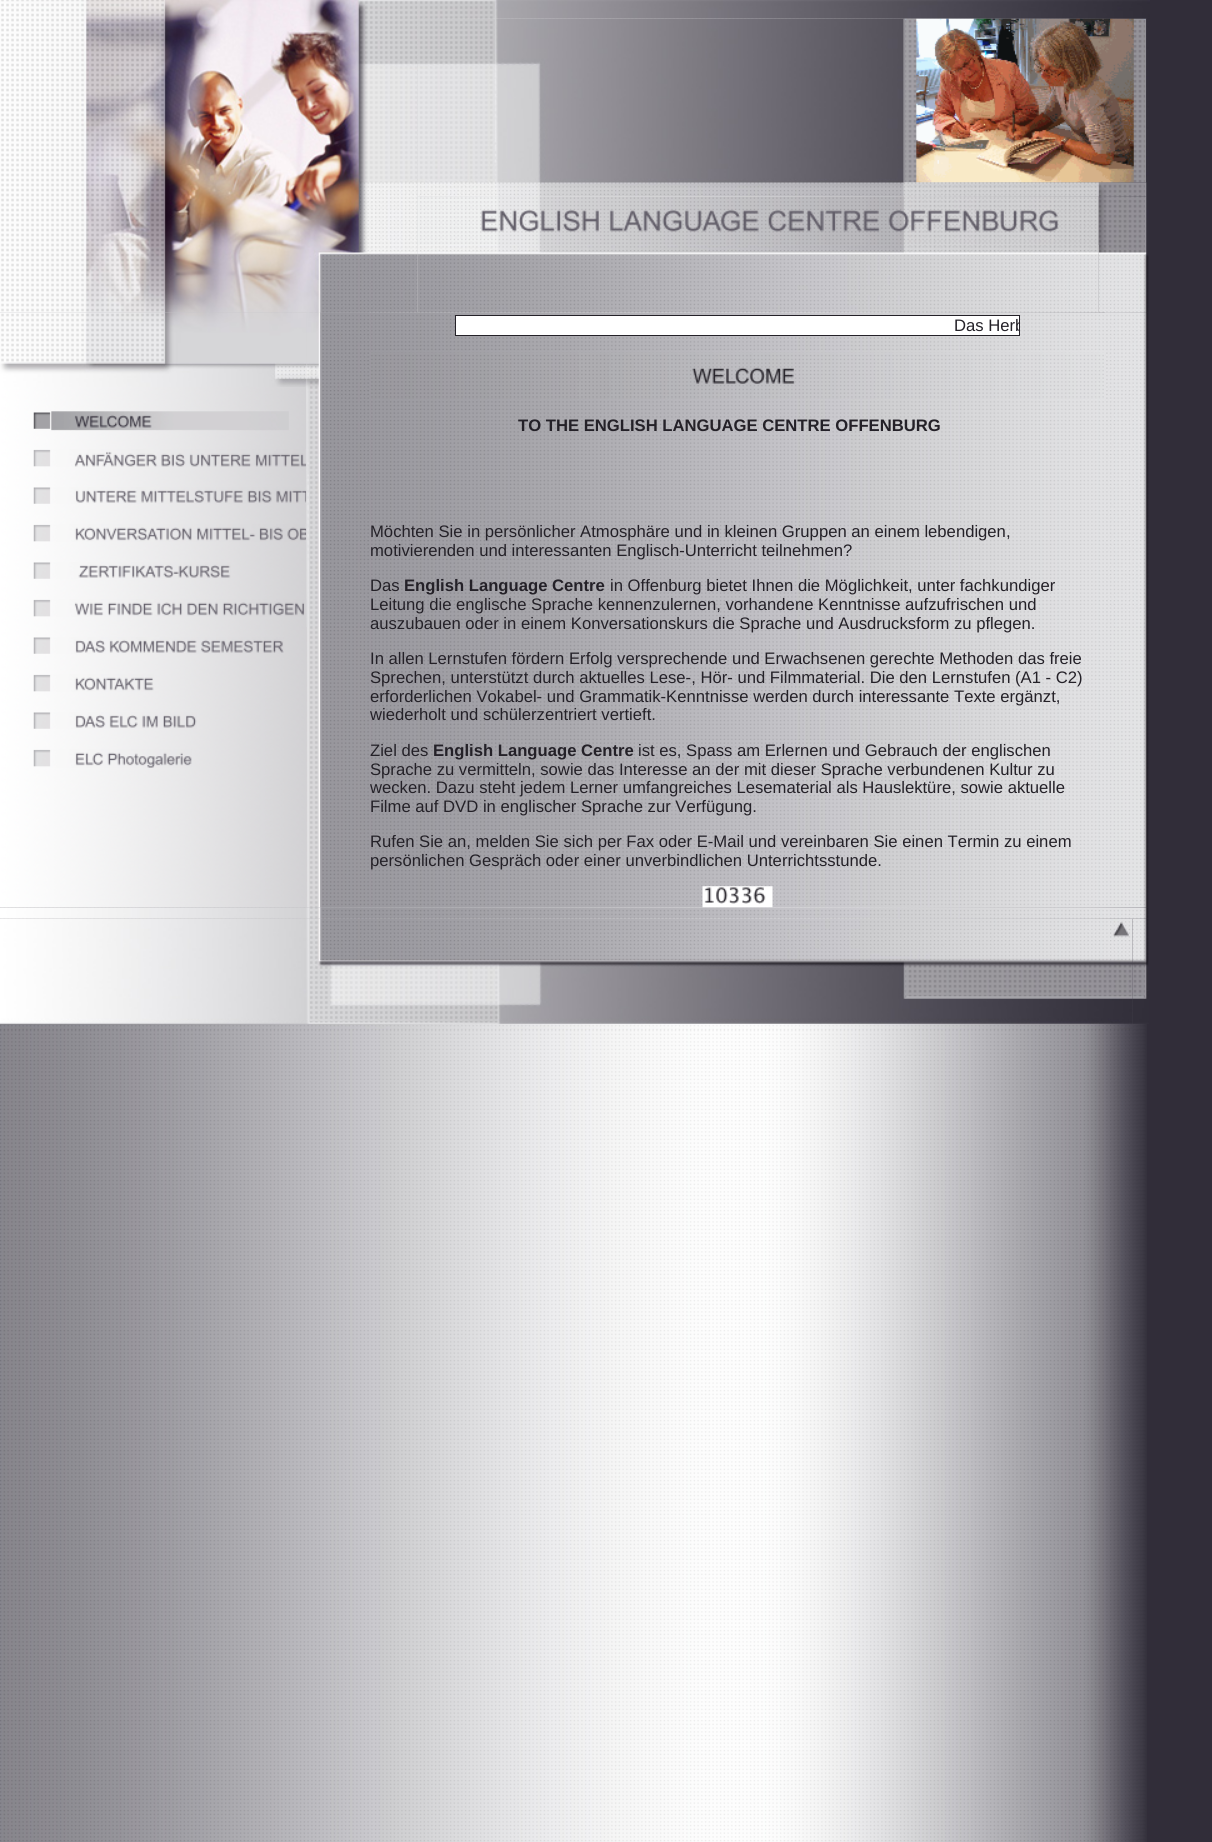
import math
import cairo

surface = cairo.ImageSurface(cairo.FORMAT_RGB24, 1212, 1842)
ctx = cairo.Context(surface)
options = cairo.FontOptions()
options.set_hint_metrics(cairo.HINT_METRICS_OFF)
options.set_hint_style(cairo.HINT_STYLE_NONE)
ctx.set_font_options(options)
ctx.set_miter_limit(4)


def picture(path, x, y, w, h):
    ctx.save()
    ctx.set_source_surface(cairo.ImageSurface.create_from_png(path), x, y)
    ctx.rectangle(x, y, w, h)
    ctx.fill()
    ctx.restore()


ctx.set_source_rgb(0.192, 0.176, 0.224)
ctx.paint()
picture("img1.png", 0, 0, 1147, 1842)
picture("img11.png", 0, 312, 307, 596)
picture("img23.png", 306, 312, 14, 596)
picture("img25.png", 320, 312, 50, 596)
picture("img27.png", 370, 312, 735, 596)
picture("img2.png", 0, 0, 418, 313)
picture("img3.png", 417, 0, 733, 19)
picture("img4.png", 417, 18, 487, 179)
picture("img5.png", 903, 18, 244, 165)
picture("img30.png", 1105, 312, 44, 596)
picture("img6.png", 1146, 19, 3, 294)
picture("img7.png", 903, 182, 244, 15)
picture("img8.png", 417, 196, 682, 49)
picture("img9.png", 1098, 196, 49, 117)
picture("img10.png", 417, 245, 682, 68)
picture("img12.png", 0, 312, 307, 75)
picture("img13.png", 33, 411, 256, 20)
picture("img14.png", 33, 449, 274, 18)
picture("img15.png", 33, 487, 274, 17)
picture("img16.png", 33, 524, 274, 18)
picture("img17.png", 33, 562, 198, 17)
picture("img18.png", 33, 599, 272, 18)
picture("img19.png", 33, 637, 251, 17)
picture("img20.png", 33, 674, 121, 18)
picture("img21.png", 33, 712, 164, 17)
picture("img22.png", 33, 749, 159, 19)
picture("img24.png", 306, 312, 14, 315)
picture("img26.png", 320, 312, 50, 316)
ctx.set_source_rgb(1, 1, 1)
ctx.rectangle(455.5, 315.5, 564, 20)
ctx.fill_preserve()
ctx.set_source_rgb(0.141, 0.129, 0.157)
ctx.set_line_width(1)
ctx.stroke()
ctx.save()
ctx.rectangle(456, 316, 563, 19)
ctx.clip()
ctx.select_font_face("Liberation Sans")
ctx.set_font_size(16.65)
ctx.move_to(954, 331)
ctx.show_text("Das Herb")
ctx.restore()
picture("img28.png", 371, 352, 733, 47)
ctx.select_font_face("Liberation Sans", cairo.FONT_SLANT_NORMAL, cairo.FONT_WEIGHT_BOLD)
ctx.set_font_size(16.65)
ctx.move_to(518, 431)
ctx.show_text("TO THE ENGLISH LANGUAGE CENTRE OFFENBURG")
ctx.select_font_face("Liberation Sans")
ctx.move_to(370, 537)
ctx.show_text("Möchten Sie in persönlicher Atmosphäre und in kleinen Gruppen an einem lebendigen,")
ctx.move_to(370, 556)
ctx.show_text("motivierenden und interessanten Englisch-Unterricht teilnehmen?")
ctx.move_to(370, 591)
ctx.show_text("Das")
ctx.select_font_face("Liberation Sans", cairo.FONT_SLANT_NORMAL, cairo.FONT_WEIGHT_BOLD)
ctx.move_to(404, 591)
ctx.show_text("English Language Centre")
ctx.select_font_face("Liberation Sans")
ctx.move_to(610, 591)
ctx.show_text("in Offenburg bietet Ihnen die Möglichkeit, unter fachkundiger")
ctx.move_to(370, 610)
ctx.show_text("Leitung die englische Sprache kennenzulernen, vorhandene Kenntnisse aufzufrischen und")
ctx.move_to(370, 629)
ctx.show_text("auszubauen oder in einem Konversationskurs die Sprache und Ausdrucksform zu pflegen.")
ctx.move_to(370, 664)
ctx.show_text("In allen Lernstufen fördern Erfolg versprechende und Erwachsenen gerechte Methoden das freie")
ctx.move_to(370, 683)
ctx.show_text("Sprechen, unterstützt durch aktuelles Lese-, Hör- und Filmmaterial. Die den Lernstufen (A1 - C2)")
ctx.move_to(370, 702)
ctx.show_text("erforderlichen Vokabel- und Grammatik-Kenntnisse werden durch interessante Texte ergänzt,")
ctx.move_to(370, 720)
ctx.show_text("wiederholt und schülerzentriert vertieft.")
ctx.move_to(370, 756)
ctx.show_text("Ziel des")
ctx.select_font_face("Liberation Sans", cairo.FONT_SLANT_NORMAL, cairo.FONT_WEIGHT_BOLD)
ctx.move_to(433, 756)
ctx.show_text("English Language Centre")
ctx.select_font_face("Liberation Sans")
ctx.move_to(638, 756)
ctx.show_text("ist es, Spass am Erlernen und Gebrauch der englischen")
ctx.move_to(370, 775)
ctx.show_text("Sprache zu vermitteln, sowie das Interesse an der mit dieser Sprache verbundenen Kultur zu")
ctx.move_to(370, 793)
ctx.show_text("wecken. Dazu steht jedem Lerner umfangreiches Lesematerial als Hauslektüre, sowie aktuelle")
ctx.move_to(370, 812)
ctx.show_text("Filme auf DVD in englischer Sprache zur Verfügung.")
ctx.move_to(370, 847)
ctx.show_text("Rufen Sie an, melden Sie sich per Fax oder E-Mail und vereinbaren Sie einen Termin zu einem")
ctx.move_to(370, 866)
ctx.show_text("persönlichen Gespräch oder einer unverbindlichen Unterrichtsstunde.")
picture("img29.png", 702, 886, 71, 22)
picture("img31.png", 1105, 312, 41, 316)
picture("img32.png", 0, 907, 1149, 12)
picture("img33.png", 0, 918, 1110, 112)
picture("img34.png", 1110, 918, 23, 22)
picture("img35.png", 1132, 918, 17, 106)
picture("img36.png", 1110, 940, 23, 90)
surface.write_to_png("page.png")
